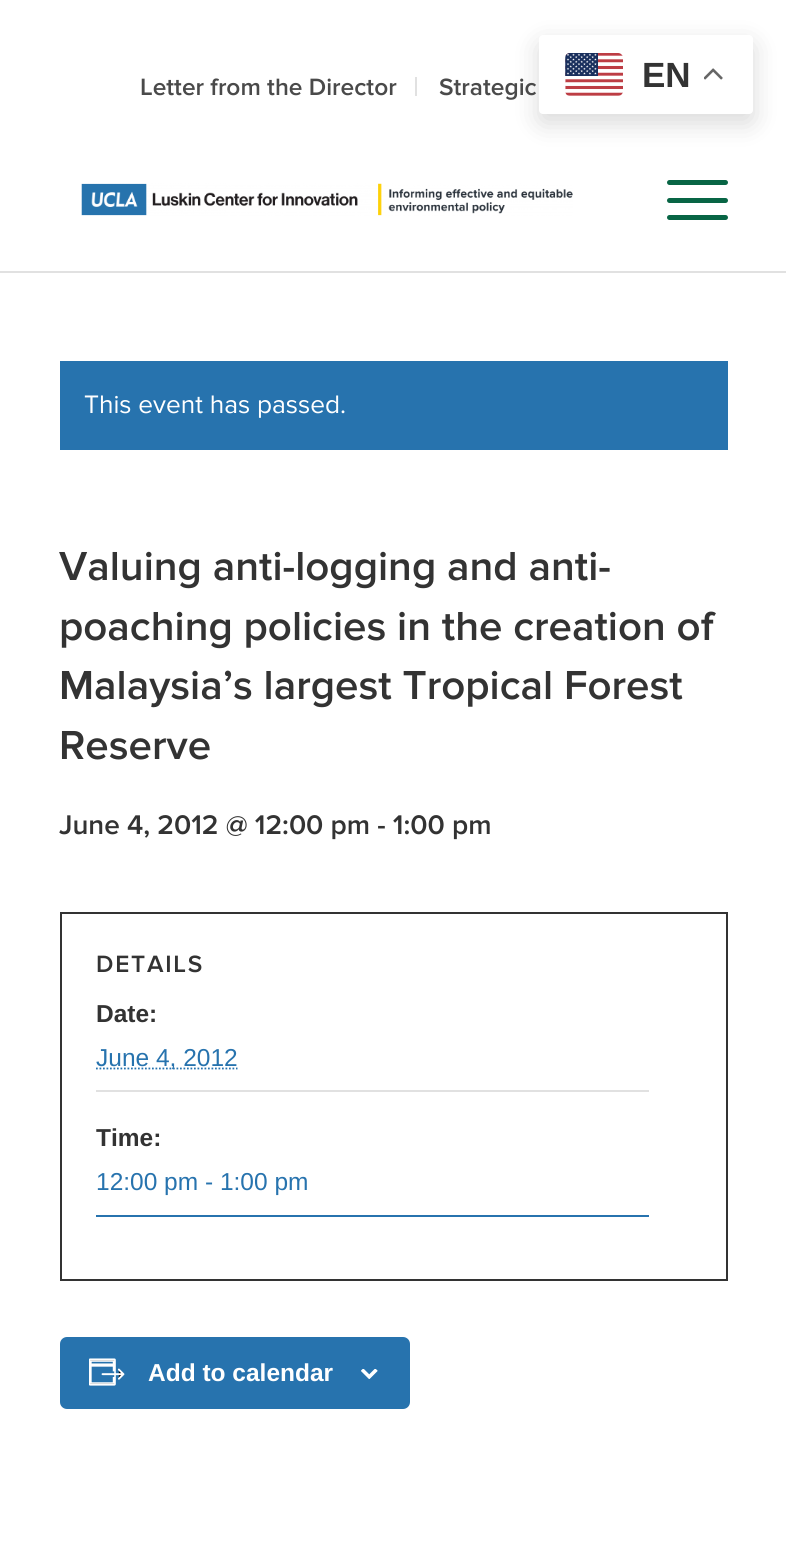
import math
import cairo

surface = cairo.ImageSurface(cairo.FORMAT_RGB24, 786, 1557)
ctx = cairo.Context(surface)
options = cairo.FontOptions()
options.set_hint_metrics(cairo.HINT_METRICS_OFF)
options.set_hint_style(cairo.HINT_STYLE_NONE)
ctx.set_font_options(options)
ctx.set_miter_limit(4)


def spaced_text(x, y, s, letter, word):
    ctx.move_to(x, y)
    for ch in s:
        ctx.show_text(ch)
        ctx.rel_move_to(letter + word * (ch == ' '), 0)


def round_rect(x, y, w, h, r):
    ctx.new_sub_path()
    for i, (u, v) in enumerate([(x + w - r, y + h - r), (x + r, y + h - r), (x + r, y + r), (x + w - r, y + r)]):
        ctx.arc(u, v, r, i * math.pi / 2, (i + 1) * math.pi / 2)
    ctx.close_path()


def shadow(x, y, w, h, r, blur, alpha):
    ctx.push_group_with_content(cairo.CONTENT_ALPHA)
    ctx.set_operator(cairo.OPERATOR_SOURCE)
    for i in range(15, -16, -2):
        e = blur * i / 6
        if min(w, h) + 2 * e > 0:
            ctx.set_source_rgba(0, 0, 0, alpha * math.erfc((i - 1) / 8.5) / 2)
            round_rect(x - e, y - e, w + 2 * e, h + 2 * e, max(0, min(r + e + blur * .6, min(w, h) / 2 + e)))
            ctx.fill()
    ctx.mask(ctx.pop_group())


def picture(path, x, y, w, h):
    ctx.save()
    ctx.set_source_surface(cairo.ImageSurface.create_from_png(path), x, y)
    ctx.rectangle(x, y, w, h)
    ctx.fill()
    ctx.restore()


ctx.set_source_rgb(1, 1, 1)
ctx.paint()
ctx.set_source_rgb(0, 0, 0)
shadow(539, 44, 214, 79, 4, 13, 0.15)
ctx.set_source_rgb(1, 1, 1)
round_rect(539, 35, 214, 79, 4)
ctx.fill()
picture("img1.png", 565, 53, 58, 43)
ctx.select_font_face("Liberation Sans", cairo.FONT_SLANT_NORMAL, cairo.FONT_WEIGHT_BOLD)
ctx.set_font_size(35)
ctx.set_source_rgb(0.2, 0.2, 0.2)
ctx.move_to(642, 87)
ctx.show_text("EN")
picture("img2.png", 704, 68, 19, 12)
ctx.set_source_rgb(0.882, 0.882, 0.882)
ctx.rectangle(415, 77, 2, 19)
ctx.fill()
ctx.select_font_face("Proxima Nova SemiBold")
ctx.set_font_size(24.5)
ctx.set_source_rgb(0.29, 0.29, 0.29)
ctx.move_to(140, 95)
ctx.show_text("Letter from the Director")
ctx.move_to(439, 95)
ctx.show_text("Strategic")
ctx.set_source_rgb(0.882, 0.882, 0.882)
ctx.rectangle(0, 271, 786, 2)
ctx.fill()
picture("img3.png", 81, 183, 492, 33)
ctx.set_source_rgb(0.035, 0.396, 0.271)
round_rect(667, 198, 61, 5, 2.5)
ctx.fill()
round_rect(667, 180, 61, 5, 2.5)
ctx.fill()
round_rect(667, 215, 61, 5, 2.5)
ctx.fill()
ctx.set_source_rgb(0.153, 0.451, 0.682)
ctx.rectangle(60, 361, 668, 89)
ctx.fill()
ctx.select_font_face("Proxima Nova")
ctx.set_font_size(26.25)
ctx.set_source_rgb(1, 1, 1)
ctx.move_to(84, 413)
ctx.show_text("This event has passed.")
ctx.select_font_face("Proxima Nova SemiBold")
ctx.set_font_size(42)
ctx.set_source_rgb(0.2, 0.2, 0.2)
ctx.move_to(59, 580)
ctx.show_text("Valuing anti-logging and anti-")
ctx.move_to(59, 640)
ctx.show_text("poaching policies in the creation of")
ctx.move_to(59, 699)
ctx.show_text("Malaysia’s largest Tropical Forest")
ctx.move_to(59, 759)
ctx.show_text("Reserve")
ctx.set_font_size(28)
ctx.move_to(59, 834)
ctx.show_text("June 4, 2012 @ 12:00 pm - 1:00 pm")
ctx.rectangle(61, 913, 666, 367)
ctx.stroke()
ctx.set_font_size(24.5)
spaced_text(96, 972, "DETAILS", 1.75, 0)
ctx.select_font_face("Liberation Sans", cairo.FONT_SLANT_NORMAL, cairo.FONT_WEIGHT_BOLD)
ctx.move_to(96, 1022)
ctx.show_text("Date:")
ctx.set_source_rgb(0.882, 0.882, 0.882)
ctx.rectangle(96, 1090, 553, 2)
ctx.fill()
ctx.new_path()
ctx.move_to(96, 1068.5)
ctx.line_to(237.5, 1068.5)
ctx.set_source_rgb(0.153, 0.451, 0.682)
ctx.set_line_width(1.8)
ctx.set_dash([1.75, 1.75])
ctx.stroke()
ctx.select_font_face("Liberation Sans")
ctx.move_to(96, 1066)
ctx.show_text("June 4, 2012")
ctx.select_font_face("Liberation Sans", cairo.FONT_SLANT_NORMAL, cairo.FONT_WEIGHT_BOLD)
ctx.set_source_rgb(0.2, 0.2, 0.2)
ctx.move_to(96, 1146)
ctx.show_text("Time:")
ctx.set_source_rgb(0.153, 0.451, 0.682)
ctx.rectangle(96, 1215, 553, 2)
ctx.fill()
ctx.select_font_face("Liberation Sans")
ctx.move_to(96, 1190)
ctx.show_text("12:00 pm - 1:00 pm")
round_rect(61, 1338, 348, 70, 6)
ctx.fill_preserve()
ctx.set_line_width(2)
ctx.set_dash([])
ctx.stroke()
picture("img4.png", 89, 1358, 36, 28)
ctx.select_font_face("Liberation Sans", cairo.FONT_SLANT_NORMAL, cairo.FONT_WEIGHT_BOLD)
ctx.set_source_rgb(1, 1, 1)
ctx.move_to(148, 1381)
ctx.show_text("Add to calendar")
picture("img5.png", 361, 1369, 17, 10)
surface.write_to_png("page.png")
